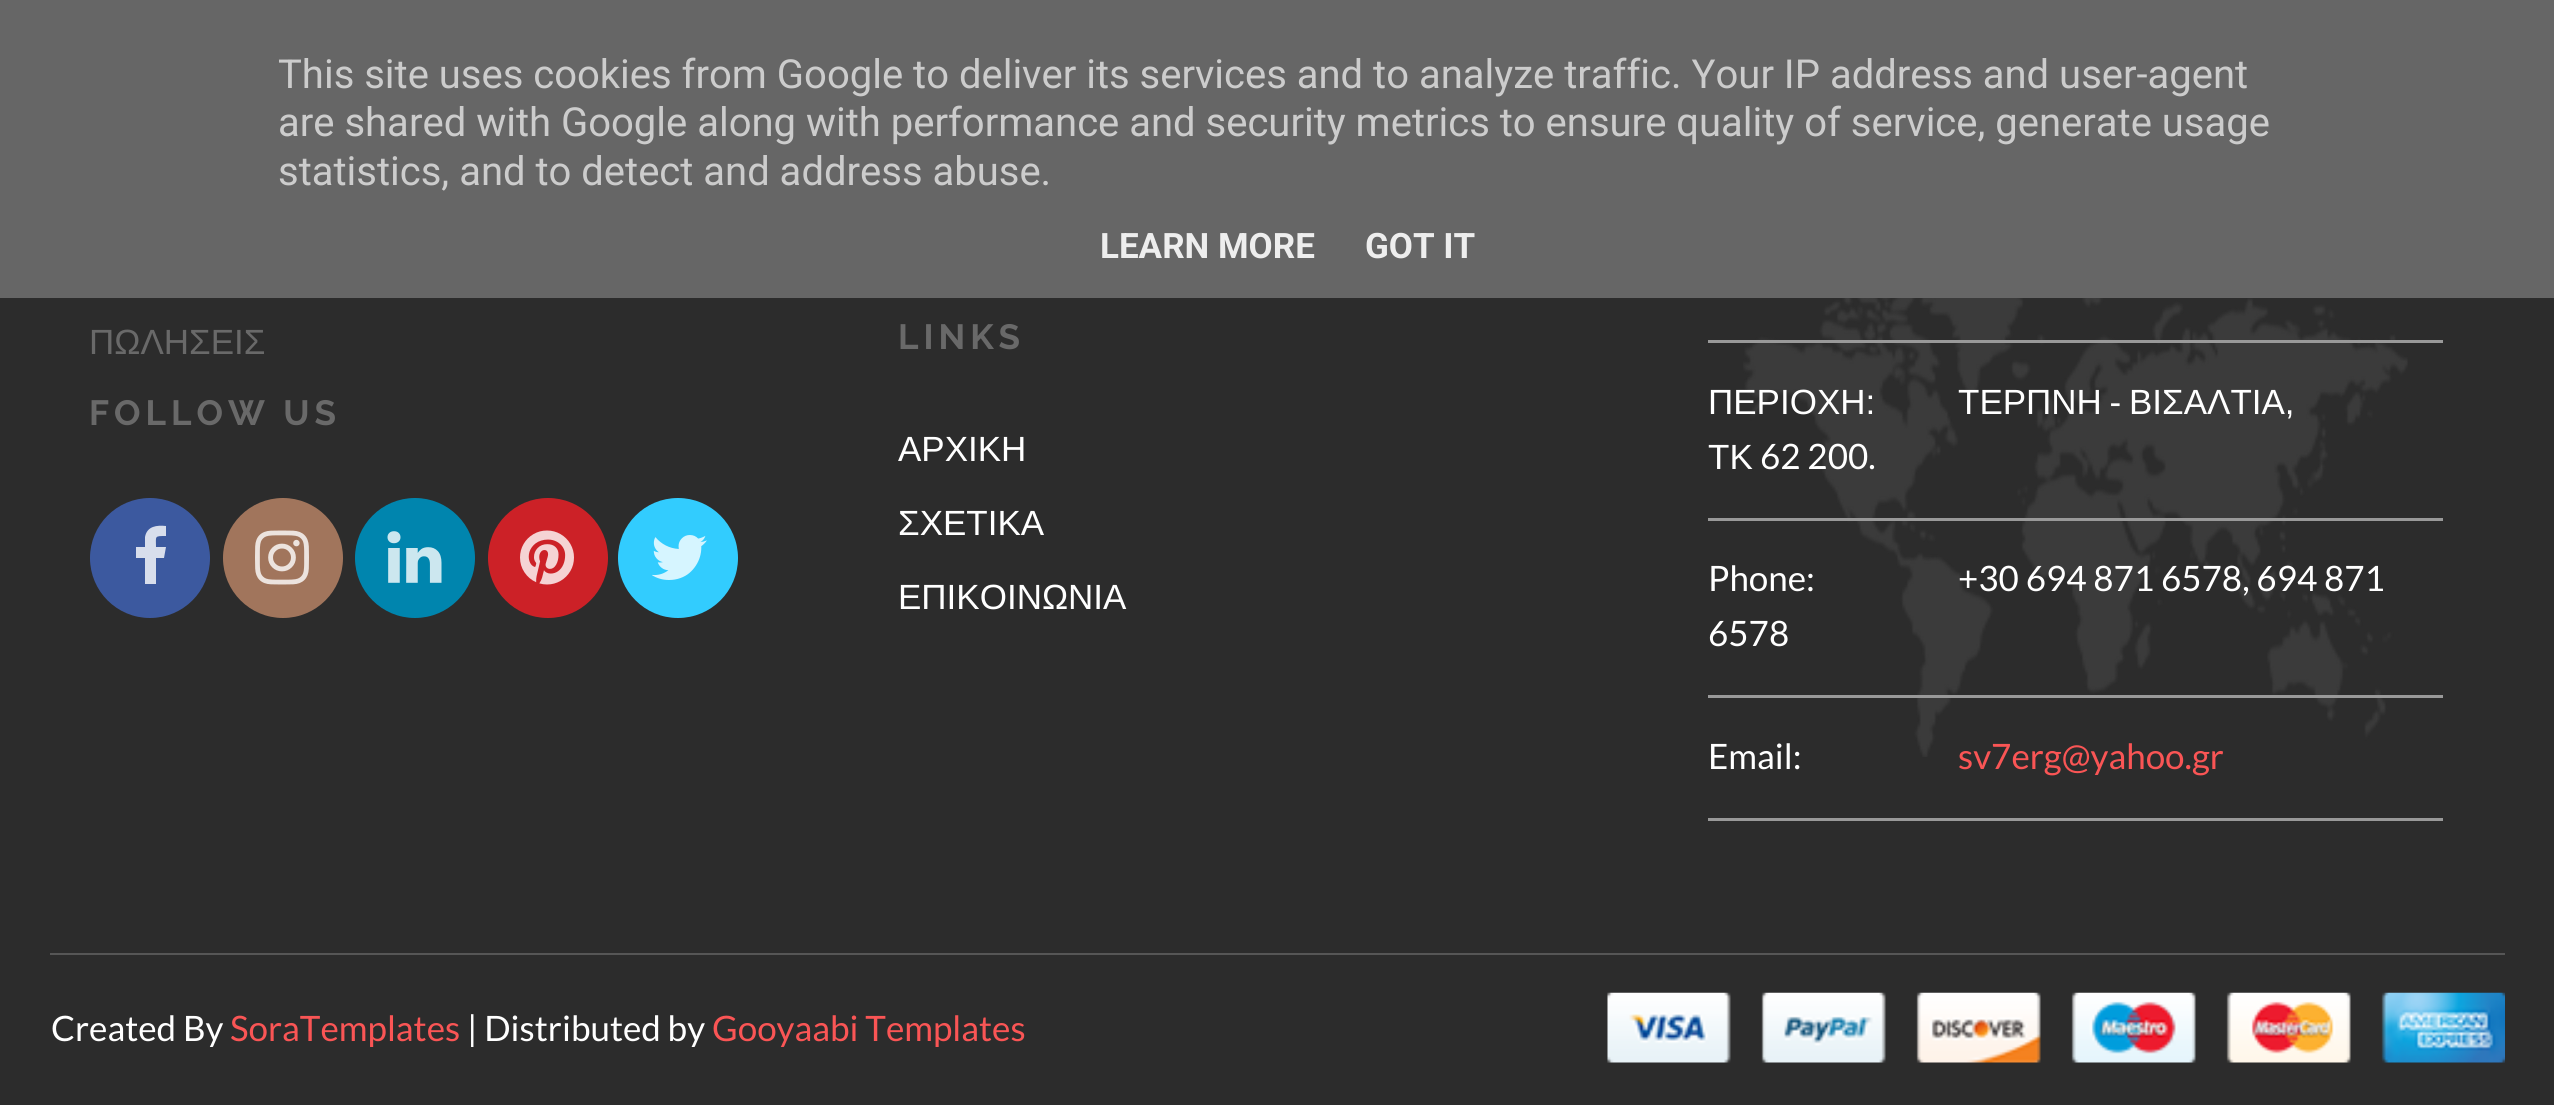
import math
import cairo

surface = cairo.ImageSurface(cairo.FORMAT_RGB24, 2554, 1105)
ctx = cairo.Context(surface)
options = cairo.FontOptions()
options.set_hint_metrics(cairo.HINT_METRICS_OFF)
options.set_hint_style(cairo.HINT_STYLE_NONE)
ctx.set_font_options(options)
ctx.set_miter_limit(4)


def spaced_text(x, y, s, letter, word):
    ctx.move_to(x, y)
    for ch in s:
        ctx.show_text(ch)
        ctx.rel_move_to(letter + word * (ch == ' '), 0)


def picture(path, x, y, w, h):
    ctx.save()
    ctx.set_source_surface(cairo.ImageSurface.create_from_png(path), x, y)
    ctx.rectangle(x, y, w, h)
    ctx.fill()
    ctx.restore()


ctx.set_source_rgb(0.173, 0.173, 0.173)
ctx.paint()
ctx.set_source_rgb(0.4, 0.4, 0.4)
ctx.rectangle(0, 0, 2554, 298)
ctx.fill()
ctx.select_font_face("Roboto")
ctx.set_font_size(40)
ctx.set_source_rgb(0.8, 0.8, 0.8)
ctx.move_to(278, 88)
ctx.show_text("This site uses cookies from Google to deliver its services and to analyze traffic. Your IP address and user-agent")
ctx.move_to(278, 136)
ctx.show_text("are shared with Google along with performance and security metrics to ensure quality of service, generate usage")
ctx.move_to(278, 185)
ctx.show_text("statistics, and to detect and address abuse.")
ctx.select_font_face("Roboto", cairo.FONT_SLANT_NORMAL, cairo.FONT_WEIGHT_BOLD)
ctx.set_font_size(35)
ctx.set_source_rgb(0.933, 0.933, 0.933)
ctx.move_to(1100, 258)
ctx.show_text("LEARN MORE")
ctx.move_to(1365, 258)
ctx.show_text("GOT IT")
ctx.set_source_rgb(0.337, 0.337, 0.337)
ctx.rectangle(50, 953, 2455, 2)
ctx.fill()
ctx.select_font_face("Liberation Sans")
ctx.set_source_rgb(0.412, 0.412, 0.412)
ctx.move_to(89, 354)
ctx.show_text("ΠΩΛΗΣΕΙΣ")
ctx.select_font_face("Raleway", cairo.FONT_SLANT_NORMAL, cairo.FONT_WEIGHT_BOLD)
spaced_text(89, 425, "FOLLOW US", 5, 0)
ctx.set_source_rgb(0.235, 0.349, 0.624)
ctx.new_path()
ctx.arc(150, 558, 60, 0, 2 * math.pi)
ctx.fill()
ctx.set_source_rgb(0.847, 0.871, 0.925)
ctx.new_path()
ctx.move_to(166, 526)
ctx.line_to(166, 536)
ctx.curve_to(154, 536, 156, 536, 156, 547)
ctx.line_to(166, 547)
ctx.line_to(164, 558)
ctx.line_to(156, 558)
ctx.line_to(156, 584)
ctx.line_to(145, 584)
ctx.line_to(145, 558)
ctx.line_to(136, 558)
ctx.line_to(136, 547)
ctx.line_to(145, 547)
ctx.line_to(145, 537)
ctx.curve_to(147, 526, 157, 525, 166, 526)
ctx.close_path()
ctx.fill()
ctx.set_source_rgb(0.631, 0.459, 0.361)
ctx.arc(283, 558, 60, 0, 2 * math.pi)
ctx.fill()
picture("img1.png", 255, 530, 54, 55)
ctx.set_source_rgb(0, 0.522, 0.682)
ctx.arc(415, 558, 60, 0, 2 * math.pi)
ctx.fill()
picture("img2.png", 387, 531, 55, 52)
ctx.set_source_rgb(0.8, 0.129, 0.153)
ctx.arc(548, 558, 60, 0, 2 * math.pi)
ctx.fill()
picture("img3.png", 520, 530, 54, 55)
ctx.set_source_rgb(0.196, 0.8, 0.996)
ctx.arc(678, 558, 60, 0, 2 * math.pi)
ctx.fill()
picture("img4.png", 652, 535, 55, 45)
ctx.set_source_rgb(0.412, 0.412, 0.412)
spaced_text(898, 349, "LINKS", 5, 0)
ctx.select_font_face("Liberation Sans")
ctx.set_source_rgb(1, 1, 1)
ctx.move_to(898, 461)
ctx.show_text("ΑΡΧΙΚΗ")
ctx.move_to(898, 535)
ctx.show_text("ΣΧΕΤΙΚΑ")
ctx.move_to(898, 609)
ctx.show_text("ΕΠΙΚΟΙΝΩΝΙΑ")
picture("img5.png", 1743, 298, 665, 459)
ctx.set_source_rgb(0.6, 0.6, 0.6)
ctx.rectangle(1708, 340, 735, 3)
ctx.fill()
ctx.rectangle(1708, 518, 735, 3)
ctx.fill()
ctx.set_source_rgb(1, 1, 1)
ctx.move_to(1708, 414)
ctx.show_text("ΠΕΡΙΟΧΗ:")
spaced_text(1958, 414, "ΤΕΡΠΝΗ - ΒΙΣΑΛΤΙΑ,", 0, -2)
ctx.move_to(1708, 469)
ctx.show_text("ΤΚ")
ctx.select_font_face("Lato")
ctx.move_to(1760, 469)
ctx.show_text("62 200.")
ctx.set_source_rgb(0.6, 0.6, 0.6)
ctx.rectangle(1708, 695, 735, 3)
ctx.fill()
ctx.set_source_rgb(1, 1, 1)
ctx.move_to(1708, 591)
ctx.show_text("Phone:")
ctx.move_to(1958, 591)
ctx.show_text("+30 694 871 6578, 694 871")
ctx.move_to(1708, 646)
ctx.show_text("6578")
ctx.set_source_rgb(0.6, 0.6, 0.6)
ctx.rectangle(1708, 818, 735, 3)
ctx.fill()
ctx.set_source_rgb(1, 1, 1)
ctx.move_to(1708, 769)
ctx.show_text("Email:")
ctx.set_source_rgb(0.98, 0.333, 0.333)
ctx.move_to(1958, 769)
ctx.show_text("sv7erg@yahoo.gr")
ctx.set_source_rgb(1, 1, 1)
ctx.move_to(51, 1041)
ctx.show_text("Created By")
ctx.set_source_rgb(0.98, 0.333, 0.333)
ctx.move_to(230, 1041)
ctx.show_text("SoraTemplates")
ctx.set_source_rgb(1, 1, 1)
ctx.move_to(467, 1041)
ctx.show_text("| Distributed by")
ctx.set_source_rgb(0.98, 0.333, 0.333)
ctx.move_to(712, 1041)
ctx.show_text("Gooyaabi Templates")
picture("img6.png", 1607, 992, 898, 71)
surface.write_to_png("page.png")
